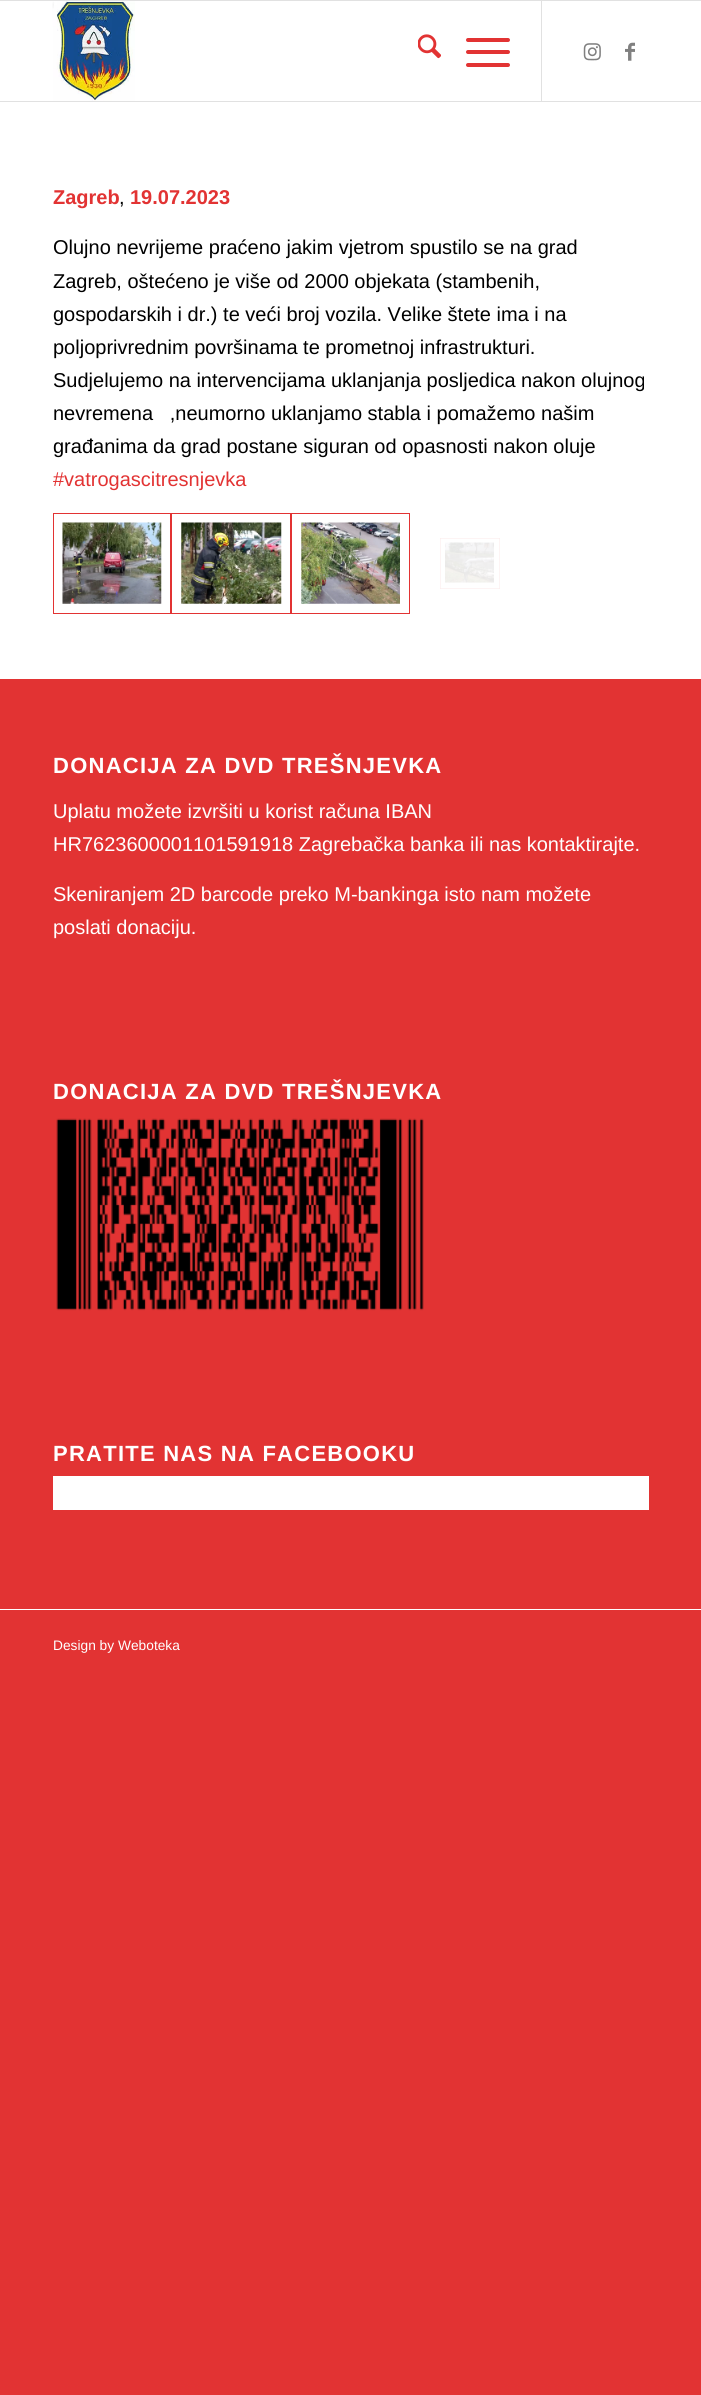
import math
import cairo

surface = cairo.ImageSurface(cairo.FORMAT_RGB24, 701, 2395)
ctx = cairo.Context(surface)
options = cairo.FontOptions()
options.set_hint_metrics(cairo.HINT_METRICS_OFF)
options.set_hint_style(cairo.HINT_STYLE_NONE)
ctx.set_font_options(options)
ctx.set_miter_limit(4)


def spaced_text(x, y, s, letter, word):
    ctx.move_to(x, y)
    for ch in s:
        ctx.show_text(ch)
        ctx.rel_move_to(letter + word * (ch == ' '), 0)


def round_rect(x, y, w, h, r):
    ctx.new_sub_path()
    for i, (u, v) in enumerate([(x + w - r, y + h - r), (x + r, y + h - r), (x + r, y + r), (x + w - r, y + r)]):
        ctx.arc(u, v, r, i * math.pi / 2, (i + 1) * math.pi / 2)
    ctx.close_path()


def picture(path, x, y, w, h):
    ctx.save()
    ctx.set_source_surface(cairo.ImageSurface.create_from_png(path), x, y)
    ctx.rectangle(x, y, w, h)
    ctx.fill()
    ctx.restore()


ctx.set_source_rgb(0.886, 0.2, 0.2)
ctx.paint()
ctx.set_source_rgb(1, 1, 1)
ctx.rectangle(0, 1, 701, 678)
ctx.fill()
ctx.set_source_rgb(0.882, 0.882, 0.882)
ctx.rectangle(0, 0, 701, 1)
ctx.fill()
ctx.rectangle(0, 101, 701, 1)
ctx.fill()
picture("img1.png", 52, 1, 83, 100)
ctx.rectangle(541, 1, 1, 100)
ctx.fill()
picture("img2.png", 418, 34, 23, 25)
ctx.set_source_rgb(0.886, 0.2, 0.2)
round_rect(466, 50, 44, 4, 2)
ctx.fill()
round_rect(466, 38, 44, 4, 2)
ctx.fill()
round_rect(466, 63, 44, 4, 2)
ctx.fill()
picture("img3.png", 583, 43, 18, 18)
picture("img4.png", 625, 42, 10, 19)
ctx.select_font_face("Liberation Sans", cairo.FONT_SLANT_NORMAL, cairo.FONT_WEIGHT_BOLD)
ctx.set_font_size(20)
ctx.move_to(53, 204)
ctx.show_text("Zagreb")
ctx.select_font_face("Liberation Sans")
ctx.set_source_rgb(0, 0, 0)
ctx.move_to(119, 204)
ctx.show_text(",")
ctx.select_font_face("Liberation Sans", cairo.FONT_SLANT_NORMAL, cairo.FONT_WEIGHT_BOLD)
ctx.set_source_rgb(0.886, 0.2, 0.2)
ctx.move_to(130, 204)
ctx.show_text("19.07.2023")
ctx.select_font_face("Liberation Sans")
ctx.set_source_rgb(0, 0, 0)
ctx.move_to(53, 254)
ctx.show_text("Olujno nevrijeme praćeno jakim vjetrom spustilo se na grad")
ctx.move_to(53, 288)
ctx.show_text("Zagreb, oštećeno je više od 2000 objekata (stambenih,")
ctx.move_to(53, 321)
ctx.show_text("gospodarskih i dr.) te veći broj vozila. Velike štete ima i na")
ctx.move_to(53, 354)
ctx.show_text("poljoprivrednim površinama te prometnoj infrastrukturi.")
ctx.move_to(53, 387)
ctx.show_text("Sudjelujemo na intervencijama uklanjanja posljedica nakon olujnog")
ctx.move_to(53, 420)
ctx.show_text("nevremena   ,neumorno uklanjamo stabla i pomažemo našim")
ctx.move_to(53, 453)
ctx.show_text("građanima da grad postane siguran od opasnosti nakon oluje")
ctx.set_source_rgb(0.886, 0.2, 0.2)
ctx.move_to(53, 486)
ctx.show_text("#vatrogascitresnjevka")
ctx.rectangle(53.5, 513.5, 117, 100)
ctx.set_line_width(1)
ctx.stroke()
picture("img5.png", 62, 522, 100, 82)
ctx.rectangle(171.5, 513.5, 119, 100)
ctx.stroke()
picture("img6.png", 181, 522, 101, 82)
ctx.rectangle(291.5, 513.5, 118, 100)
ctx.stroke()
picture("img7.png", 301, 522, 99, 82)
ctx.rectangle(440.3, 538.3, 59.4, 50.4)
ctx.set_source_rgb(0.988, 0.922, 0.922)
ctx.set_line_width(0.6)
ctx.stroke()
picture("img8.png", 445, 542, 49, 41)
ctx.select_font_face("Liberation Sans", cairo.FONT_SLANT_NORMAL, cairo.FONT_WEIGHT_BOLD)
ctx.set_font_size(22)
ctx.set_source_rgb(1, 1, 1)
spaced_text(53, 773, "DONACIJA ZA DVD TREŠNJEVKA", 1.25, 0)
ctx.select_font_face("Liberation Sans")
ctx.set_font_size(20)
ctx.move_to(53, 818)
ctx.show_text("Uplatu možete izvršiti u korist računa IBAN")
ctx.move_to(53, 851)
ctx.show_text("HR7623600001101591918 Zagrebačka banka ili nas kontaktirajte.")
ctx.move_to(53, 901)
ctx.show_text("Skeniranjem 2D barcode preko M-bankinga isto nam možete")
ctx.move_to(53, 934)
ctx.show_text("poslati donaciju.")
ctx.select_font_face("Liberation Sans", cairo.FONT_SLANT_NORMAL, cairo.FONT_WEIGHT_BOLD)
ctx.set_font_size(22)
spaced_text(53, 1099, "DONACIJA ZA DVD TREŠNJEVKA", 1.25, 0)
picture("img9.png", 56, 1118, 368, 193)
spaced_text(53, 1461, "PRATITE NAS NA FACEBOOKU", 1.25, 0)
ctx.rectangle(53, 1476, 596, 34)
ctx.fill()
ctx.rectangle(0, 1609, 701, 1)
ctx.fill()
ctx.select_font_face("Liberation Sans")
ctx.set_font_size(13.75)
ctx.move_to(53, 1650)
ctx.show_text("Design by Weboteka")
surface.write_to_png("page.png")
